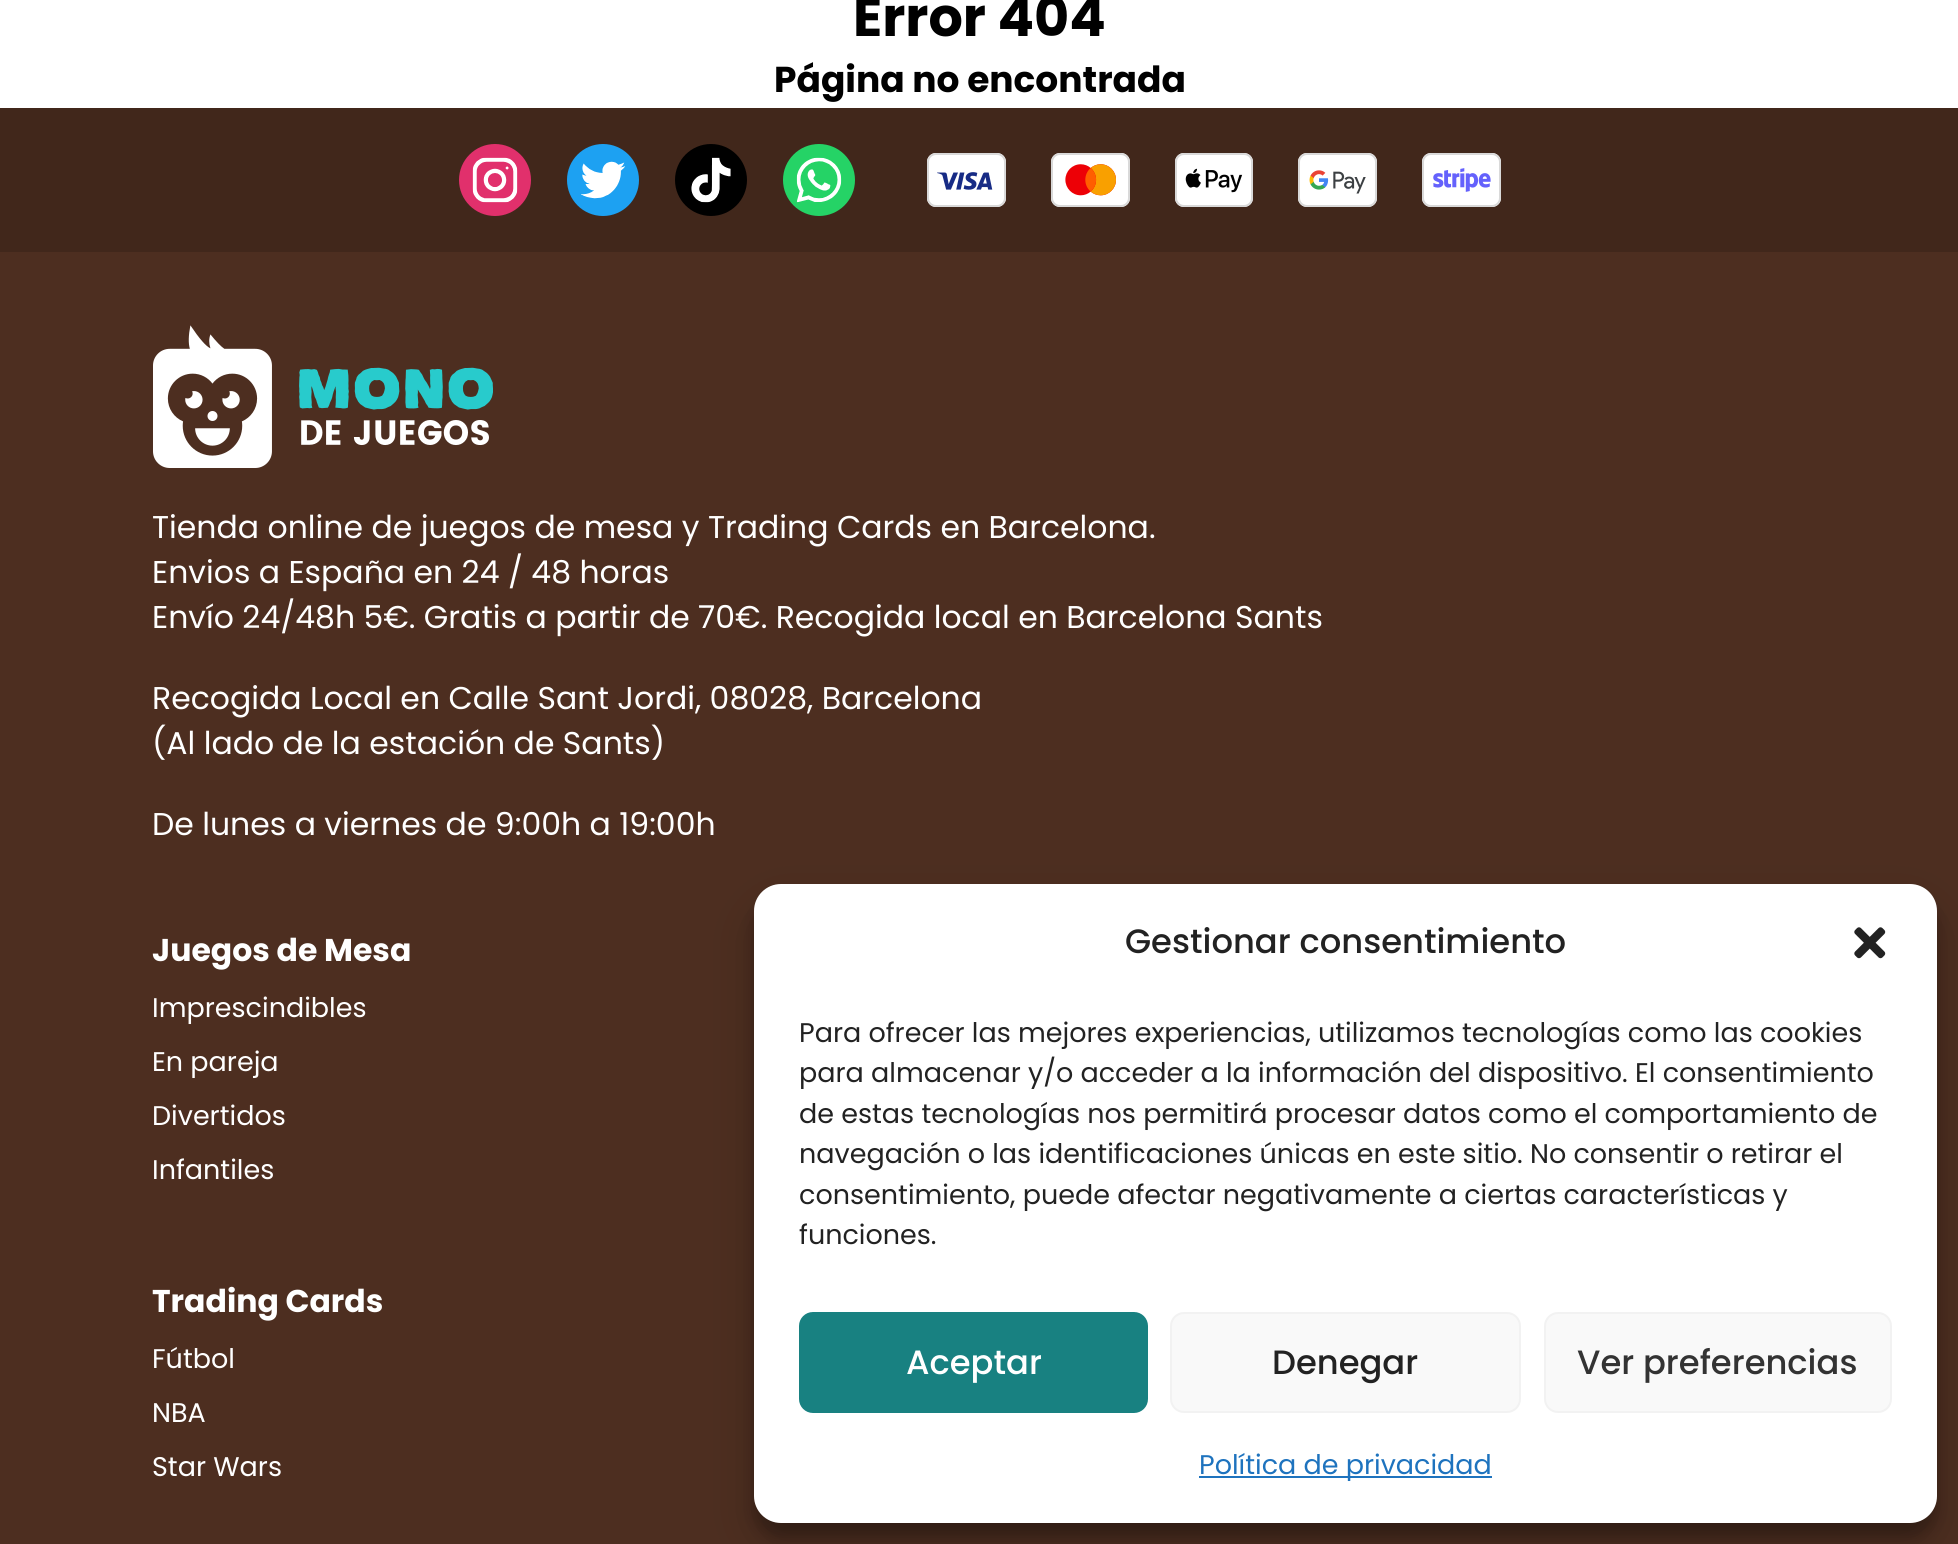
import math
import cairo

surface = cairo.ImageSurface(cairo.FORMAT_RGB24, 1958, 1544)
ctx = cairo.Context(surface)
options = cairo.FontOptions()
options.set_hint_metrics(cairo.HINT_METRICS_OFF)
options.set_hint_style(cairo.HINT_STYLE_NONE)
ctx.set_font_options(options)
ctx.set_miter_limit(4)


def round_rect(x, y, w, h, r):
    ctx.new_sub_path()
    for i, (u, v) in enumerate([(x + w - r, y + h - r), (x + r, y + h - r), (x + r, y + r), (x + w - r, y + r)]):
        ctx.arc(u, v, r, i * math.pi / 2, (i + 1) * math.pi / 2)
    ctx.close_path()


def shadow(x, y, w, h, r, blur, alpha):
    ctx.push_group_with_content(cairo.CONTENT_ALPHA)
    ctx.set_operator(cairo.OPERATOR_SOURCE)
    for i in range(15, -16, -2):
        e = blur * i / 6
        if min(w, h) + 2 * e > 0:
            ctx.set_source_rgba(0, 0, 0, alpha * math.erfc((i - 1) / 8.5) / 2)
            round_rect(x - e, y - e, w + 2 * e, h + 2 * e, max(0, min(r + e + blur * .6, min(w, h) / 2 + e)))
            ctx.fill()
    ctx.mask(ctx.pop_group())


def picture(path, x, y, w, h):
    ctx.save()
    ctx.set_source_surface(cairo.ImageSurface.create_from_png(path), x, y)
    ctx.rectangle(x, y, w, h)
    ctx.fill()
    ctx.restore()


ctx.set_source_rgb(1, 1, 1)
ctx.paint()
ctx.select_font_face("Poppins", cairo.FONT_SLANT_NORMAL, cairo.FONT_WEIGHT_BOLD)
ctx.set_font_size(54)
ctx.set_source_rgb(0, 0, 0)
ctx.move_to(853, 36)
ctx.show_text("Error 404")
ctx.set_font_size(36)
ctx.move_to(774, 92)
ctx.show_text("Página no encontrada")
ctx.set_source_rgb(0.302, 0.18, 0.125)
ctx.rectangle(0, 252, 1958, 1292)
ctx.fill()
ctx.set_source_rgb(0.255, 0.153, 0.106)
ctx.rectangle(0, 108, 1958, 144)
ctx.fill()
ctx.set_source_rgb(0.882, 0.188, 0.424)
ctx.arc(495, 180, 36, 0, 2 * math.pi)
ctx.fill()
picture("img1.png", 472, 157, 46, 46)
ctx.set_source_rgb(0.114, 0.631, 0.949)
ctx.arc(603, 180, 36, 0, 2 * math.pi)
ctx.fill()
picture("img2.png", 581, 161, 45, 38)
ctx.set_source_rgb(0, 0, 0)
ctx.arc(711, 180, 36, 0, 2 * math.pi)
ctx.fill()
picture("img3.png", 691, 157, 40, 46)
ctx.set_source_rgb(0.145, 0.827, 0.4)
ctx.arc(819, 180, 36, 0, 2 * math.pi)
ctx.fill()
picture("img4.png", 796, 157, 46, 46)
picture("img5.png", 927, 153, 574, 54)
picture("img6.png", 153, 325, 340, 143)
ctx.select_font_face("Poppins")
ctx.set_font_size(31.5)
ctx.set_source_rgb(1, 1, 1)
ctx.move_to(152, 538)
ctx.show_text("Tienda online de juegos de mesa y Trading Cards en Barcelona.")
ctx.move_to(152, 583)
ctx.show_text("Envios a España en 24 / 48 horas")
ctx.move_to(152, 628)
ctx.show_text("Envío 24/48h 5€. Gratis a partir de 70€. Recogida local en Barcelona Sants")
ctx.move_to(152, 709)
ctx.show_text("Recogida Local en Calle Sant Jordi, 08028, Barcelona")
ctx.move_to(152, 754)
ctx.show_text("(Al lado de la estación de Sants)")
ctx.move_to(152, 835)
ctx.show_text("De lunes a viernes de 9:00h a 19:00h")
ctx.select_font_face("Poppins", cairo.FONT_SLANT_NORMAL, cairo.FONT_WEIGHT_BOLD)
ctx.move_to(152, 961)
ctx.show_text("Juegos de Mesa")
ctx.select_font_face("Poppins")
ctx.set_font_size(27)
ctx.move_to(152, 1017)
ctx.show_text("Imprescindibles")
ctx.move_to(152, 1071)
ctx.show_text("En pareja")
ctx.move_to(152, 1125)
ctx.show_text("Divertidos")
ctx.move_to(152, 1179)
ctx.show_text("Infantiles")
ctx.select_font_face("Poppins", cairo.FONT_SLANT_NORMAL, cairo.FONT_WEIGHT_BOLD)
ctx.set_font_size(31.5)
ctx.move_to(152, 1312)
ctx.show_text("Trading Cards")
ctx.select_font_face("Poppins")
ctx.set_font_size(27)
ctx.move_to(152, 1368)
ctx.show_text("Fútbol")
ctx.move_to(152, 1422)
ctx.show_text("NBA")
ctx.move_to(152, 1476)
ctx.show_text("Star Wars")
ctx.set_source_rgb(0, 0, 0)
shadow(754, 898, 1183, 639, 27, 7, 0.23)
shadow(754, 907, 1183, 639, 27, 22.5, 0.19)
ctx.set_source_rgb(1, 1, 1)
round_rect(754, 884, 1183, 639, 27)
ctx.fill()
ctx.select_font_face("Poppins Medium")
ctx.set_font_size(33.75)
ctx.set_source_rgb(0.133, 0.133, 0.133)
ctx.move_to(1125, 953)
ctx.show_text("Gestionar consentimiento")
picture("img7.png", 1854, 927, 32, 32)
ctx.select_font_face("Poppins")
ctx.set_font_size(27)
ctx.move_to(799, 1042)
ctx.show_text("Para ofrecer las mejores experiencias, utilizamos tecnologías como las cookies")
ctx.move_to(799, 1082)
ctx.show_text("para almacenar y/o acceder a la información del dispositivo. El consentimiento")
ctx.move_to(799, 1123)
ctx.show_text("de estas tecnologías nos permitirá procesar datos como el comportamiento de")
ctx.move_to(799, 1163)
ctx.show_text("navegación o las identificaciones únicas en este sitio. No consentir o retirar el")
ctx.move_to(799, 1204)
ctx.show_text("consentimiento, puede afectar negativamente a ciertas características y")
ctx.move_to(799, 1244)
ctx.show_text("funciones.")
ctx.set_source_rgb(0.094, 0.506, 0.506)
round_rect(800, 1313, 347, 99, 13)
ctx.fill_preserve()
ctx.stroke()
ctx.select_font_face("Poppins Medium")
ctx.set_font_size(33.75)
ctx.set_source_rgb(1, 1, 1)
ctx.move_to(906, 1374)
ctx.show_text("Aceptar")
ctx.set_source_rgb(0.976, 0.976, 0.976)
round_rect(1171, 1313, 349, 99, 13)
ctx.fill_preserve()
ctx.set_source_rgb(0.949, 0.949, 0.949)
ctx.stroke()
ctx.set_source_rgb(0.133, 0.133, 0.133)
ctx.move_to(1272, 1374)
ctx.show_text("Denegar")
ctx.set_source_rgb(0.976, 0.976, 0.976)
round_rect(1545, 1313, 346, 99, 13)
ctx.fill_preserve()
ctx.set_source_rgb(0.949, 0.949, 0.949)
ctx.stroke()
ctx.set_source_rgb(0.2, 0.2, 0.2)
ctx.move_to(1577, 1374)
ctx.show_text("Ver preferencias")
ctx.set_source_rgb(0.118, 0.451, 0.745)
ctx.rectangle(1199, 1476, 293, 2)
ctx.fill()
ctx.select_font_face("Poppins")
ctx.set_font_size(27)
ctx.move_to(1199, 1474)
ctx.show_text("Política de privacidad")
surface.write_to_png("page.png")
